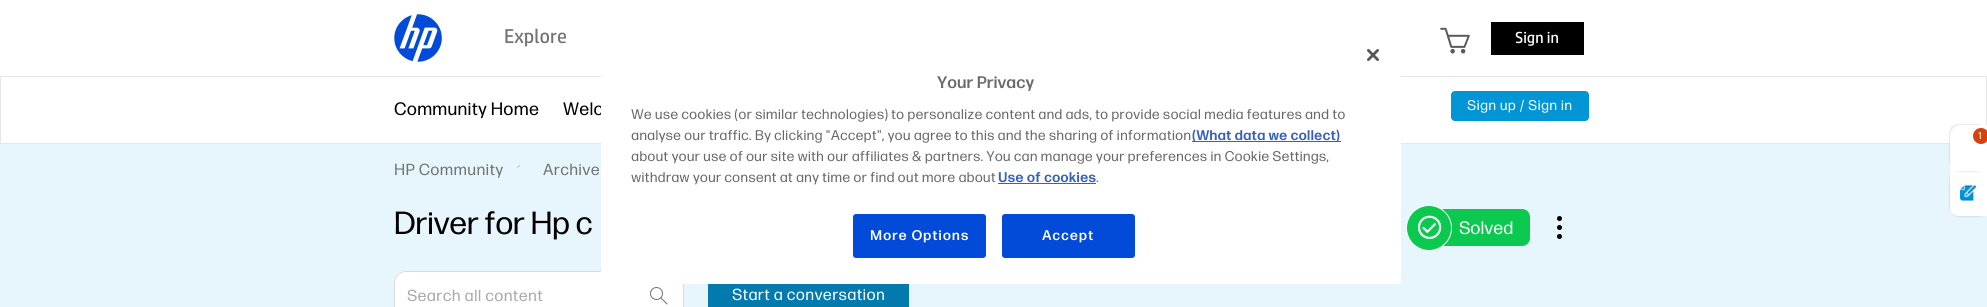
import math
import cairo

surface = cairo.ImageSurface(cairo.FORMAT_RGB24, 1987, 307)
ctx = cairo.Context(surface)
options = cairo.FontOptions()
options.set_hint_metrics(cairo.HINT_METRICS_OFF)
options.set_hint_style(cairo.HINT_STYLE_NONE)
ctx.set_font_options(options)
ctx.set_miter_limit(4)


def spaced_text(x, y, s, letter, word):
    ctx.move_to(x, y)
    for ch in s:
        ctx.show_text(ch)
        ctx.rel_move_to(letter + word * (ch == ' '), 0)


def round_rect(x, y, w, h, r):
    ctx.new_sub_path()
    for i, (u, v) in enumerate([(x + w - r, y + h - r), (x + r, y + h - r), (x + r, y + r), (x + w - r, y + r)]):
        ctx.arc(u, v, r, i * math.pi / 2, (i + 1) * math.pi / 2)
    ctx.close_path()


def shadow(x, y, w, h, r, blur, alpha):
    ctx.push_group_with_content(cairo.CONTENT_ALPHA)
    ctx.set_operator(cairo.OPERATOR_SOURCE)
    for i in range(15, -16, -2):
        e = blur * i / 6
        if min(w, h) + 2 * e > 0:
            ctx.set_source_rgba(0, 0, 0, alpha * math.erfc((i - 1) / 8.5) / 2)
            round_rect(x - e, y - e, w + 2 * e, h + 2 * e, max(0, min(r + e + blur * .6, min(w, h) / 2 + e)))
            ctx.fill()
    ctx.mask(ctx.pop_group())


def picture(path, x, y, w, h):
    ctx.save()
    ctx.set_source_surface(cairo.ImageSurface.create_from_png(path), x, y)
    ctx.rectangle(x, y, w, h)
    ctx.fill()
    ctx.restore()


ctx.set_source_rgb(1, 1, 1)
ctx.paint()
picture("img1.png", 394, 14, 48, 48)
ctx.select_font_face("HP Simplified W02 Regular")
ctx.set_font_size(20)
ctx.set_source_rgb(0.451, 0.451, 0.451)
ctx.move_to(504, 43)
ctx.show_text("Explore")
picture("img2.png", 1440, 27, 30, 27)
ctx.set_source_rgb(0, 0, 0)
ctx.rectangle(1491, 22, 93, 33)
ctx.fill()
ctx.set_font_size(16)
ctx.set_source_rgb(1, 1, 1)
ctx.move_to(1515, 43)
ctx.show_text("Sign in")
ctx.rectangle(0.5, 76.5, 1986, 67)
ctx.set_source_rgb(0.902, 0.902, 0.902)
ctx.set_line_width(1)
ctx.stroke()
ctx.select_font_face("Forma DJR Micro")
ctx.set_font_size(18)
ctx.set_source_rgb(0, 0, 0)
spaced_text(394, 115, "Community Home", 0.25, 0)
spaced_text(563, 115, "Welc", 0.25, 0)
ctx.set_source_rgb(0, 0.588, 0.839)
round_rect(1451.5, 91.5, 137, 29, 3.5)
ctx.fill_preserve()
ctx.stroke()
ctx.select_font_face("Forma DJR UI")
ctx.set_font_size(14)
ctx.set_source_rgb(1, 1, 1)
spaced_text(1467, 110, "Sign up / Sign in", 0.25, 0)
ctx.set_source_rgb(0.902, 0.961, 0.988)
ctx.rectangle(0, 144, 1987, 163)
ctx.fill()
ctx.set_source_rgb(0.969, 0.969, 0.969)
ctx.rectangle(1950, 125, 10, 90)
ctx.fill()
ctx.set_source_rgb(0.129, 0.129, 0.129)
shadow(1950, 170, 37, 46, 8, 1, 0.25)
ctx.set_source_rgb(1, 1, 1)
ctx.new_path()
ctx.move_to(1950, 170)
ctx.line_to(1987, 170)
ctx.line_to(1987, 216)
ctx.line_to(1958, 216)
ctx.curve_to(1953.5, 216, 1950, 212.5, 1950, 208)
ctx.close_path()
ctx.fill()
ctx.set_source_rgb(0.129, 0.129, 0.129)
shadow(1950, 125, 37, 46, 10, 1, 0.25)
ctx.set_source_rgb(1, 1, 1)
ctx.new_path()
ctx.move_to(1960, 125)
ctx.line_to(1987, 125)
ctx.line_to(1987, 171)
ctx.line_to(1950, 171)
ctx.line_to(1950, 135)
ctx.curve_to(1950, 129.5, 1954.5, 125, 1960, 125)
ctx.close_path()
ctx.fill()
ctx.set_source_rgb(0.843, 0.255, 0.043)
ctx.arc(1981, 136, 8, 0, 2 * math.pi)
ctx.fill()
ctx.select_font_face("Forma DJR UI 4")
ctx.set_font_size(10)
ctx.set_source_rgb(1, 1, 1)
ctx.move_to(1978, 139)
ctx.show_text("1")
picture("img3.png", 1960, 184, 16, 17)
ctx.select_font_face("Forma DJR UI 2")
ctx.set_font_size(16)
ctx.set_source_rgb(0.451, 0.451, 0.451)
spaced_text(394, 175, "HP Community", 0.3, 0)
picture("img4.png", 517, 165, 4, 4)
spaced_text(543, 175, "Archive", 0.3, 0)
ctx.select_font_face("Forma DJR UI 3")
ctx.set_font_size(32)
ctx.set_source_rgb(0, 0, 0)
ctx.move_to(394, 234)
ctx.show_text("Driver for Hp c")
ctx.set_source_rgb(0.043, 0.788, 0.31)
ctx.new_path()
ctx.move_to(1437, 209)
ctx.line_to(1522, 209)
ctx.curve_to(1526.5, 209, 1530, 212.5, 1530, 217)
ctx.line_to(1530, 238)
ctx.curve_to(1530, 242.5, 1526.5, 246, 1522, 246)
ctx.line_to(1437, 246)
ctx.close_path()
ctx.fill()
picture("img5.png", 1406, 205, 46, 46)
ctx.select_font_face("Forma DJR UI 4")
ctx.set_font_size(18)
ctx.set_source_rgb(1, 1, 1)
ctx.move_to(1459, 234)
ctx.show_text("Solved")
ctx.set_source_rgb(0, 0, 0)
ctx.new_path()
ctx.arc(1559.5, 218.5, 2.5, 0, 2 * math.pi)
ctx.fill()
ctx.arc(1559.5, 227.5, 2.5, 0, 2 * math.pi)
ctx.fill()
ctx.arc(1559.5, 236.5, 2.5, 0, 2 * math.pi)
ctx.fill()
ctx.set_source_rgb(1, 1, 1)
round_rect(394, 271, 290, 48, 12)
ctx.fill()
picture("img6.png", 650, 287, 18, 18)
round_rect(394.5, 271.5, 289, 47, 11.5)
ctx.set_source_rgb(0.859, 0.859, 0.859)
ctx.stroke()
ctx.select_font_face("Forma DJR UI 2")
ctx.set_font_size(16)
ctx.set_source_rgb(0.663, 0.663, 0.663)
spaced_text(407, 301, "Search all content", 0.3, 0)
ctx.set_source_rgb(0.008, 0.478, 0.682)
ctx.rectangle(708, 284, 201, 23)
ctx.fill()
ctx.set_source_rgb(1, 1, 1)
spaced_text(732, 300, "Start a conversation", 0.3, 0)
round_rect(601, 31, 800, 253, 2.5)
ctx.fill()
picture("img7.png", 1367, 49, 12, 12)
ctx.select_font_face("Forma DJR UI SemiBold")
ctx.set_font_size(16.75)
ctx.set_source_rgb(0.412, 0.412, 0.412)
ctx.move_to(937, 88)
ctx.show_text("Your Privacy")
ctx.select_font_face("Forma DJR UI")
ctx.set_font_size(14)
ctx.move_to(631, 119)
ctx.show_text("We use cookies (or similar technologies) to personalize content and ads, to provide social media features and to")
ctx.move_to(631, 140)
ctx.show_text("analyse our traffic. By clicking \"Accept\", you agree to this and the sharing of information")
ctx.set_source_rgb(0.22, 0.376, 0.745)
ctx.rectangle(1192, 141, 149, 1)
ctx.fill()
ctx.select_font_face("Forma DJR UI", cairo.FONT_SLANT_NORMAL, cairo.FONT_WEIGHT_BOLD)
ctx.move_to(1192, 140)
ctx.show_text("(What data we collect)")
ctx.select_font_face("Forma DJR UI")
ctx.set_source_rgb(0.412, 0.412, 0.412)
ctx.move_to(631, 161)
ctx.show_text("about your use of our site with our affiliates & partners. You can manage your preferences in Cookie Settings,")
ctx.move_to(631, 182)
ctx.show_text("withdraw your consent at any time or find out more about")
ctx.select_font_face("Forma DJR UI", cairo.FONT_SLANT_NORMAL, cairo.FONT_WEIGHT_BOLD)
ctx.set_source_rgb(0.22, 0.376, 0.745)
ctx.move_to(998, 182)
ctx.show_text("Use of cookies")
ctx.rectangle(998, 183, 98, 1)
ctx.fill()
ctx.select_font_face("Forma DJR UI")
ctx.set_source_rgb(0.412, 0.412, 0.412)
ctx.move_to(1096, 182)
ctx.show_text(".")
ctx.set_source_rgb(0.008, 0.29, 0.847)
round_rect(852.5, 213.5, 134, 45, 3.5)
ctx.fill_preserve()
ctx.set_source_rgb(1, 1, 1)
ctx.stroke()
ctx.select_font_face("Forma DJR UI 2 SemiBold")
spaced_text(870, 240, "More Options", 0.75, 0)
ctx.set_source_rgb(0.008, 0.29, 0.847)
round_rect(1001.5, 213.5, 134, 45, 3.5)
ctx.fill_preserve()
ctx.set_source_rgb(1, 1, 1)
ctx.stroke()
spaced_text(1042, 240, "Accept", 0.75, 0)
surface.write_to_png("page.png")
